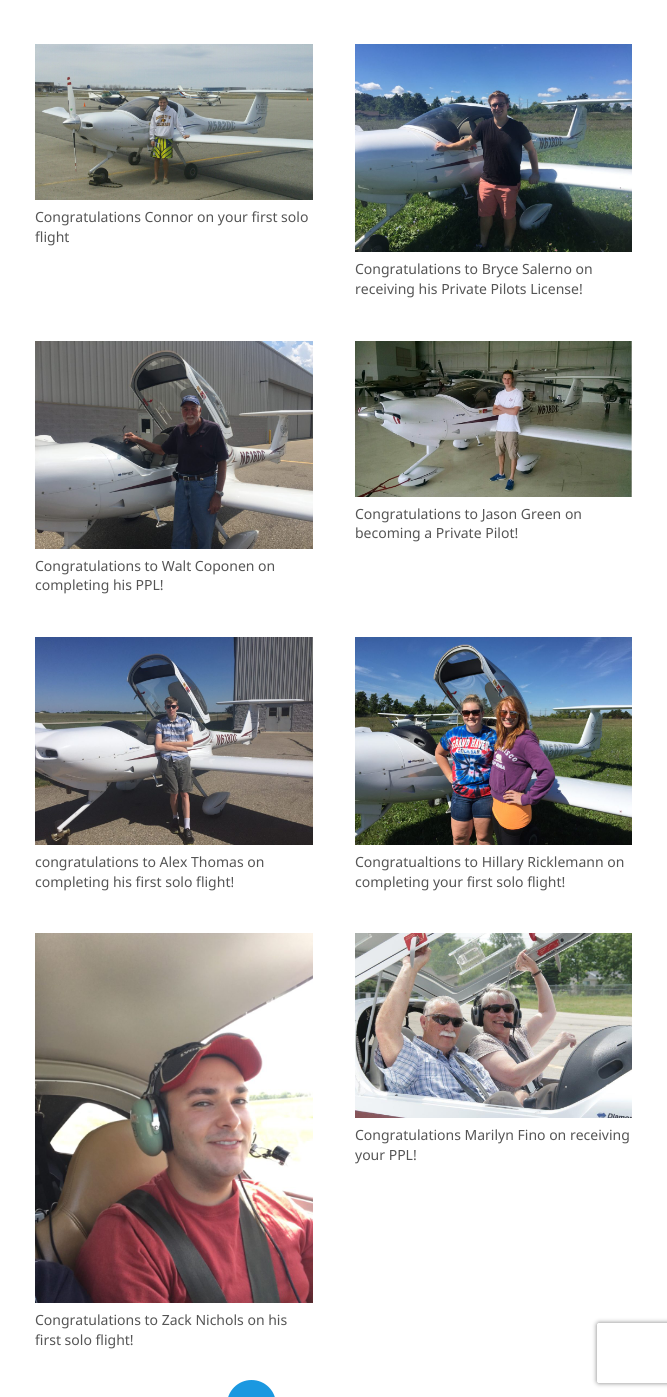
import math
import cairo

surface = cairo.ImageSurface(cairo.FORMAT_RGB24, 667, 1397)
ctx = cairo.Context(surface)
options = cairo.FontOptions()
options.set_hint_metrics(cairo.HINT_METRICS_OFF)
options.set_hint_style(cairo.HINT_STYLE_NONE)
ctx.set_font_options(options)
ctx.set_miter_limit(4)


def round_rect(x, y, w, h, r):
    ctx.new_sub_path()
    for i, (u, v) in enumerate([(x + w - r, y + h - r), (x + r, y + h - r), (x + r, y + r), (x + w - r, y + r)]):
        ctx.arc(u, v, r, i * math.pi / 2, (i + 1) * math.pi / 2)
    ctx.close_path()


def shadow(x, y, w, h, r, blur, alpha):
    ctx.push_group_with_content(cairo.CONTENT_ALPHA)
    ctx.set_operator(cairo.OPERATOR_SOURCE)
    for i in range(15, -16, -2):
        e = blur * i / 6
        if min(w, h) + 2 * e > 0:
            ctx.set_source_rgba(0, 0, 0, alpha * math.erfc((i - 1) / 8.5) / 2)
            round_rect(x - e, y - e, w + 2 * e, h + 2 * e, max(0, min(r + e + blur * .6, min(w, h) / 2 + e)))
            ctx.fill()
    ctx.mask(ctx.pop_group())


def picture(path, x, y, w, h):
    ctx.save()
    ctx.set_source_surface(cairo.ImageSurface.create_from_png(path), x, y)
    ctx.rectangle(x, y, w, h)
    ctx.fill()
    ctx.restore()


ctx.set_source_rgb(1, 1, 1)
ctx.paint()
picture("img1.png", 35, 44, 278, 156)
ctx.select_font_face("Noto Sans")
ctx.set_font_size(14)
ctx.set_source_rgb(0.333, 0.333, 0.333)
ctx.move_to(35, 222)
ctx.show_text("Congratulations Connor on your first solo")
ctx.move_to(35, 242)
ctx.show_text("flight")
picture("img2.png", 355, 44, 277, 208)
ctx.move_to(355, 274)
ctx.show_text("Congratulations to Bryce Salerno on")
ctx.move_to(355, 294)
ctx.show_text("receiving his Private Pilots License!")
picture("img3.png", 355, 341, 277, 156)
ctx.move_to(355, 519)
ctx.show_text("Congratulations to Jason Green on")
ctx.move_to(355, 538)
ctx.show_text("becoming a Private Pilot!")
picture("img4.png", 35, 341, 278, 208)
ctx.move_to(35, 571)
ctx.show_text("Congratulations to Walt Coponen on")
ctx.move_to(35, 590)
ctx.show_text("completing his PPL!")
picture("img5.png", 35, 637, 278, 208)
ctx.move_to(35, 867)
ctx.show_text("congratulations to Alex Thomas on")
ctx.move_to(35, 887)
ctx.show_text("completing his first solo flight!")
picture("img6.png", 355, 637, 277, 208)
ctx.move_to(355, 867)
ctx.show_text("Congratualtions to Hillary Ricklemann on")
ctx.move_to(355, 887)
ctx.show_text("completing your first solo flight!")
picture("img7.png", 355, 933, 277, 185)
ctx.move_to(355, 1140)
ctx.show_text("Congratulations Marilyn Fino on receiving")
ctx.move_to(355, 1160)
ctx.show_text("your PPL!")
picture("img8.png", 35, 933, 278, 370)
ctx.move_to(35, 1325)
ctx.show_text("Congratulations to Zack Nichols on his")
ctx.move_to(35, 1345)
ctx.show_text("first solo flight!")
ctx.set_source_rgb(0.106, 0.596, 0.878)
round_rect(227, 1380, 49, 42, 24.5)
ctx.fill()
ctx.save()
ctx.set_fill_rule(cairo.FILL_RULE_EVEN_ODD)
ctx.new_path()
ctx.move_to(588, 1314)
ctx.line_to(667, 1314)
ctx.line_to(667, 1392)
ctx.line_to(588, 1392)
ctx.close_path()
ctx.move_to(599, 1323)
ctx.line_to(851, 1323)
ctx.curve_to(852, 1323, 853, 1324, 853, 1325)
ctx.line_to(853, 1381)
ctx.curve_to(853, 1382, 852, 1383, 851, 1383)
ctx.line_to(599, 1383)
ctx.curve_to(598, 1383, 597, 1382, 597, 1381)
ctx.line_to(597, 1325)
ctx.curve_to(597, 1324, 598, 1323, 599, 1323)
ctx.close_path()
ctx.clip()
ctx.set_source_rgb(0.502, 0.502, 0.502)
shadow(597, 1323, 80, 60, 2, 2.5, 1)
ctx.restore()
surface.write_to_png("page.png")
